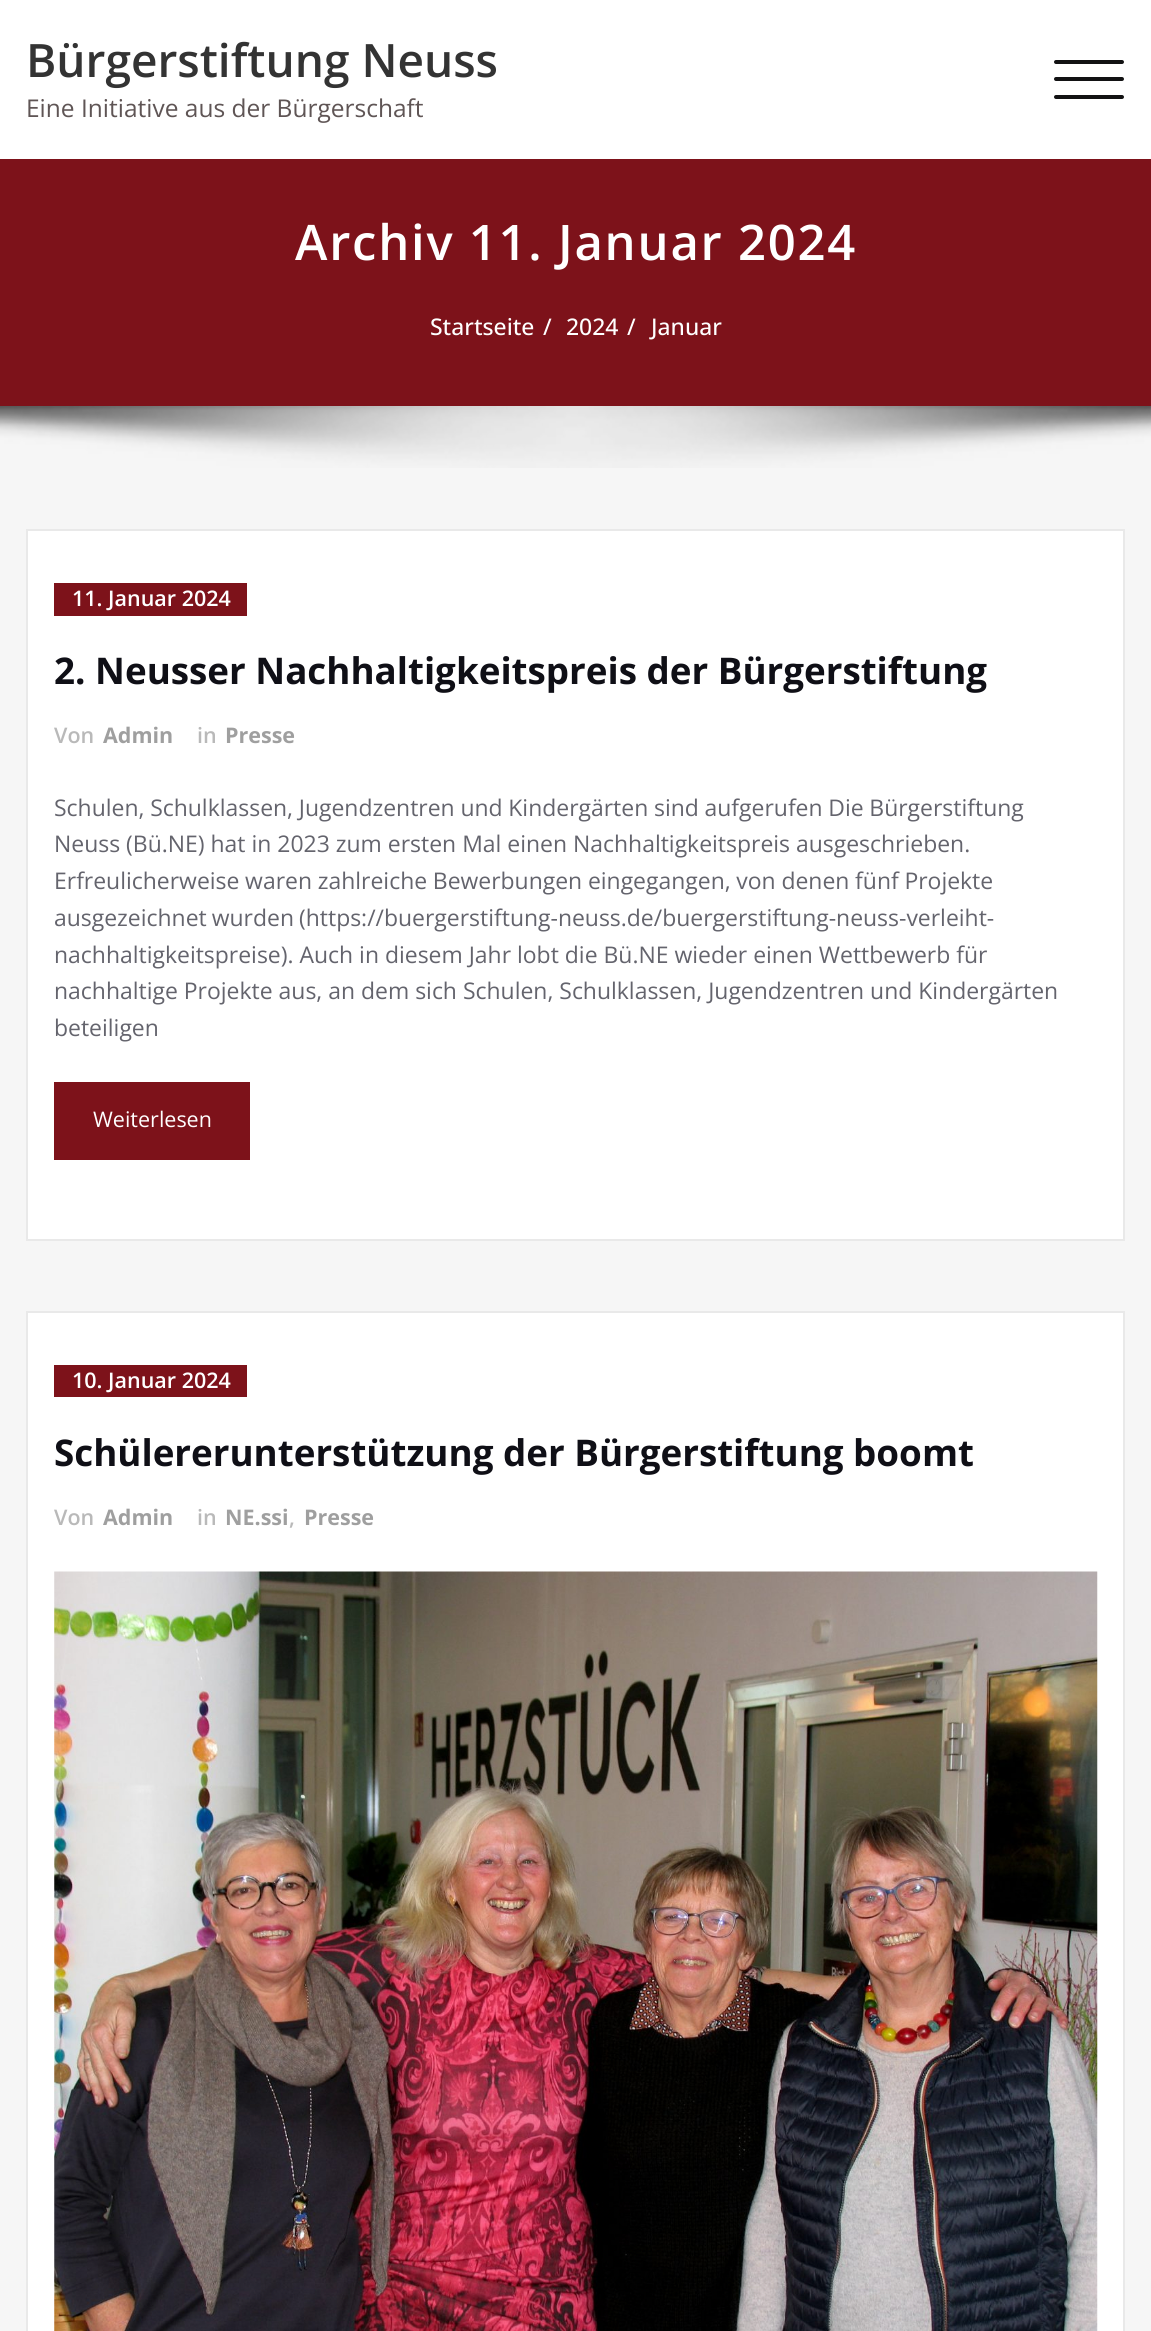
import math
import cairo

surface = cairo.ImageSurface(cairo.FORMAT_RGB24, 1151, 2331)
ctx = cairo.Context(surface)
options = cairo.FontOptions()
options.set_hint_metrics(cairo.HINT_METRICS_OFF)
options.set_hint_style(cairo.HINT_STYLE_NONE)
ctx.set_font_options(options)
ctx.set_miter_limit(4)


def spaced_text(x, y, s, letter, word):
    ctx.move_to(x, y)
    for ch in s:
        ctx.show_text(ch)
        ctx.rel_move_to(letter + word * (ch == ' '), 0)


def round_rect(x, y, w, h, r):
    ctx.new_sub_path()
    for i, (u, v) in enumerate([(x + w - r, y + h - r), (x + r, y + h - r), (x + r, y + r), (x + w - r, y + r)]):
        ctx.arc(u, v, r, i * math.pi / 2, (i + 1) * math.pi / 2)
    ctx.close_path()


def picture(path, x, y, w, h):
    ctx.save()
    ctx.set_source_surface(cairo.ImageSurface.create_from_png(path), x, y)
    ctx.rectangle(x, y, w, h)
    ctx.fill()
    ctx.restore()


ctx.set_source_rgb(0.961, 0.961, 0.961)
ctx.paint()
ctx.set_source_rgb(1, 1, 1)
ctx.rectangle(0, 0, 1151, 159)
ctx.fill()
ctx.select_font_face("Open Sans SemiBold")
ctx.set_font_size(46)
ctx.set_source_rgb(0.2, 0.2, 0.2)
ctx.move_to(26, 77)
ctx.show_text("Bürgerstiftung Neuss")
ctx.select_font_face("Open Sans")
ctx.set_font_size(24.5)
ctx.set_source_rgb(0.373, 0.333, 0.333)
ctx.move_to(26, 117)
ctx.show_text("Eine Initiative aus der Bürgerschaft")
ctx.set_source_rgb(0.071, 0.071, 0.075)
round_rect(1054, 60, 70, 4, 2)
ctx.fill()
round_rect(1054, 77, 70, 4, 2)
ctx.fill()
round_rect(1054, 95, 70, 4, 2)
ctx.fill()
ctx.set_source_rgb(0.49, 0.071, 0.102)
ctx.rectangle(0, 159, 1151, 247)
ctx.fill()
ctx.select_font_face("Open Sans SemiBold")
ctx.set_font_size(49)
ctx.set_source_rgb(1, 1, 1)
spaced_text(295, 260, "Archiv 11. Januar 2024", 1.75, 0)
ctx.select_font_face("Open Sans Medium")
ctx.set_font_size(22.95)
ctx.move_to(430, 335)
ctx.show_text("Startseite")
ctx.move_to(543, 335)
ctx.show_text("/")
ctx.move_to(566, 335)
ctx.show_text("2024")
ctx.move_to(627, 335)
ctx.show_text("/")
ctx.move_to(651, 335)
ctx.show_text("Januar")
picture("img1.png", 0, 406, 1151, 62)
ctx.rectangle(27, 530, 1097, 710)
ctx.fill_preserve()
ctx.set_source_rgb(0.914, 0.914, 0.914)
ctx.stroke()
ctx.set_source_rgb(0.49, 0.071, 0.102)
ctx.rectangle(54, 583, 193, 33)
ctx.fill()
ctx.select_font_face("Open Sans SemiBold")
ctx.set_font_size(21.5)
ctx.set_source_rgb(1, 1, 1)
ctx.move_to(72, 606)
ctx.show_text("11. Januar 2024")
ctx.select_font_face("Open Sans", cairo.FONT_SLANT_NORMAL, cairo.FONT_WEIGHT_BOLD)
ctx.set_font_size(36.75)
ctx.set_source_rgb(0.059, 0.059, 0.086)
ctx.move_to(54, 684)
ctx.show_text("2. Neusser Nachhaltigkeitspreis der Bürgerstiftung")
ctx.select_font_face("Open Sans SemiBold")
ctx.set_font_size(21.5)
ctx.set_source_rgb(0.725, 0.725, 0.725)
ctx.move_to(54, 743)
ctx.show_text("Von")
ctx.select_font_face("Open Sans", cairo.FONT_SLANT_NORMAL, cairo.FONT_WEIGHT_BOLD)
ctx.set_source_rgb(0.624, 0.624, 0.624)
ctx.move_to(103, 743)
ctx.show_text("Admin")
ctx.select_font_face("Open Sans SemiBold")
ctx.set_source_rgb(0.725, 0.725, 0.725)
ctx.move_to(197, 743)
ctx.show_text("in")
ctx.select_font_face("Open Sans", cairo.FONT_SLANT_NORMAL, cairo.FONT_WEIGHT_BOLD)
ctx.set_source_rgb(0.624, 0.624, 0.624)
ctx.move_to(225, 743)
ctx.show_text("Presse")
ctx.select_font_face("Open Sans")
ctx.set_font_size(22.95)
ctx.set_source_rgb(0.392, 0.392, 0.427)
spaced_text(54, 816, "Schulen, Schulklassen, Jugendzentren und Kindergärten sind aufgerufen Die Bürgerstiftung", 0, -0.25)
ctx.move_to(54, 852)
ctx.show_text("Neuss (Bü.NE) hat in 2023 zum ersten Mal einen Nachhaltigkeitspreis ausgeschrieben.")
spaced_text(54, 889, "Erfreulicherweise waren zahlreiche Bewerbungen eingegangen, von denen fünf Projekte", 0, -0.25)
spaced_text(54, 926, "ausgezeichnet wurden (https://buergerstiftung-neuss.de/buergerstiftung-neuss-verleiht-", 0, -1)
ctx.move_to(54, 963)
ctx.show_text("nachhaltigkeitspreise). Auch in diesem Jahr lobt die Bü.NE wieder einen Wettbewerb für")
ctx.move_to(54, 999)
ctx.show_text("nachhaltige Projekte aus, an dem sich Schulen, Schulklassen, Jugendzentren und Kindergärten")
ctx.move_to(54, 1036)
ctx.show_text("beteiligen")
ctx.set_source_rgb(0.49, 0.071, 0.102)
ctx.rectangle(54, 1082, 196, 78)
ctx.fill()
ctx.set_font_size(21.5)
ctx.set_source_rgb(1, 1, 1)
ctx.move_to(93, 1127)
ctx.show_text("Weiterlesen")
ctx.rectangle(27, 1312, 1097, 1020)
ctx.fill_preserve()
ctx.set_source_rgb(0.914, 0.914, 0.914)
ctx.stroke()
ctx.set_source_rgb(0.49, 0.071, 0.102)
ctx.rectangle(54, 1365, 193, 32)
ctx.fill()
ctx.select_font_face("Open Sans SemiBold")
ctx.set_source_rgb(1, 1, 1)
ctx.move_to(72, 1388)
ctx.show_text("10. Januar 2024")
ctx.select_font_face("Open Sans", cairo.FONT_SLANT_NORMAL, cairo.FONT_WEIGHT_BOLD)
ctx.set_font_size(36.75)
ctx.set_source_rgb(0.059, 0.059, 0.086)
ctx.move_to(54, 1466)
ctx.show_text("Schülererunterstützung der Bürgerstiftung boomt")
ctx.select_font_face("Open Sans SemiBold")
ctx.set_font_size(21.5)
ctx.set_source_rgb(0.725, 0.725, 0.725)
ctx.move_to(54, 1525)
ctx.show_text("Von")
ctx.select_font_face("Open Sans", cairo.FONT_SLANT_NORMAL, cairo.FONT_WEIGHT_BOLD)
ctx.set_source_rgb(0.624, 0.624, 0.624)
ctx.move_to(103, 1525)
ctx.show_text("Admin")
ctx.select_font_face("Open Sans SemiBold")
ctx.set_source_rgb(0.725, 0.725, 0.725)
ctx.move_to(197, 1525)
ctx.show_text("in")
ctx.select_font_face("Open Sans", cairo.FONT_SLANT_NORMAL, cairo.FONT_WEIGHT_BOLD)
ctx.set_source_rgb(0.624, 0.624, 0.624)
ctx.move_to(225, 1525)
ctx.show_text("NE.ssi")
ctx.select_font_face("Open Sans SemiBold")
ctx.set_source_rgb(0.725, 0.725, 0.725)
ctx.move_to(289, 1525)
ctx.show_text(",")
ctx.select_font_face("Open Sans", cairo.FONT_SLANT_NORMAL, cairo.FONT_WEIGHT_BOLD)
ctx.set_source_rgb(0.624, 0.624, 0.624)
ctx.move_to(304, 1525)
ctx.show_text("Presse")
picture("img2.png", 54, 1571, 1044, 760)
surface.write_to_png("page.png")
